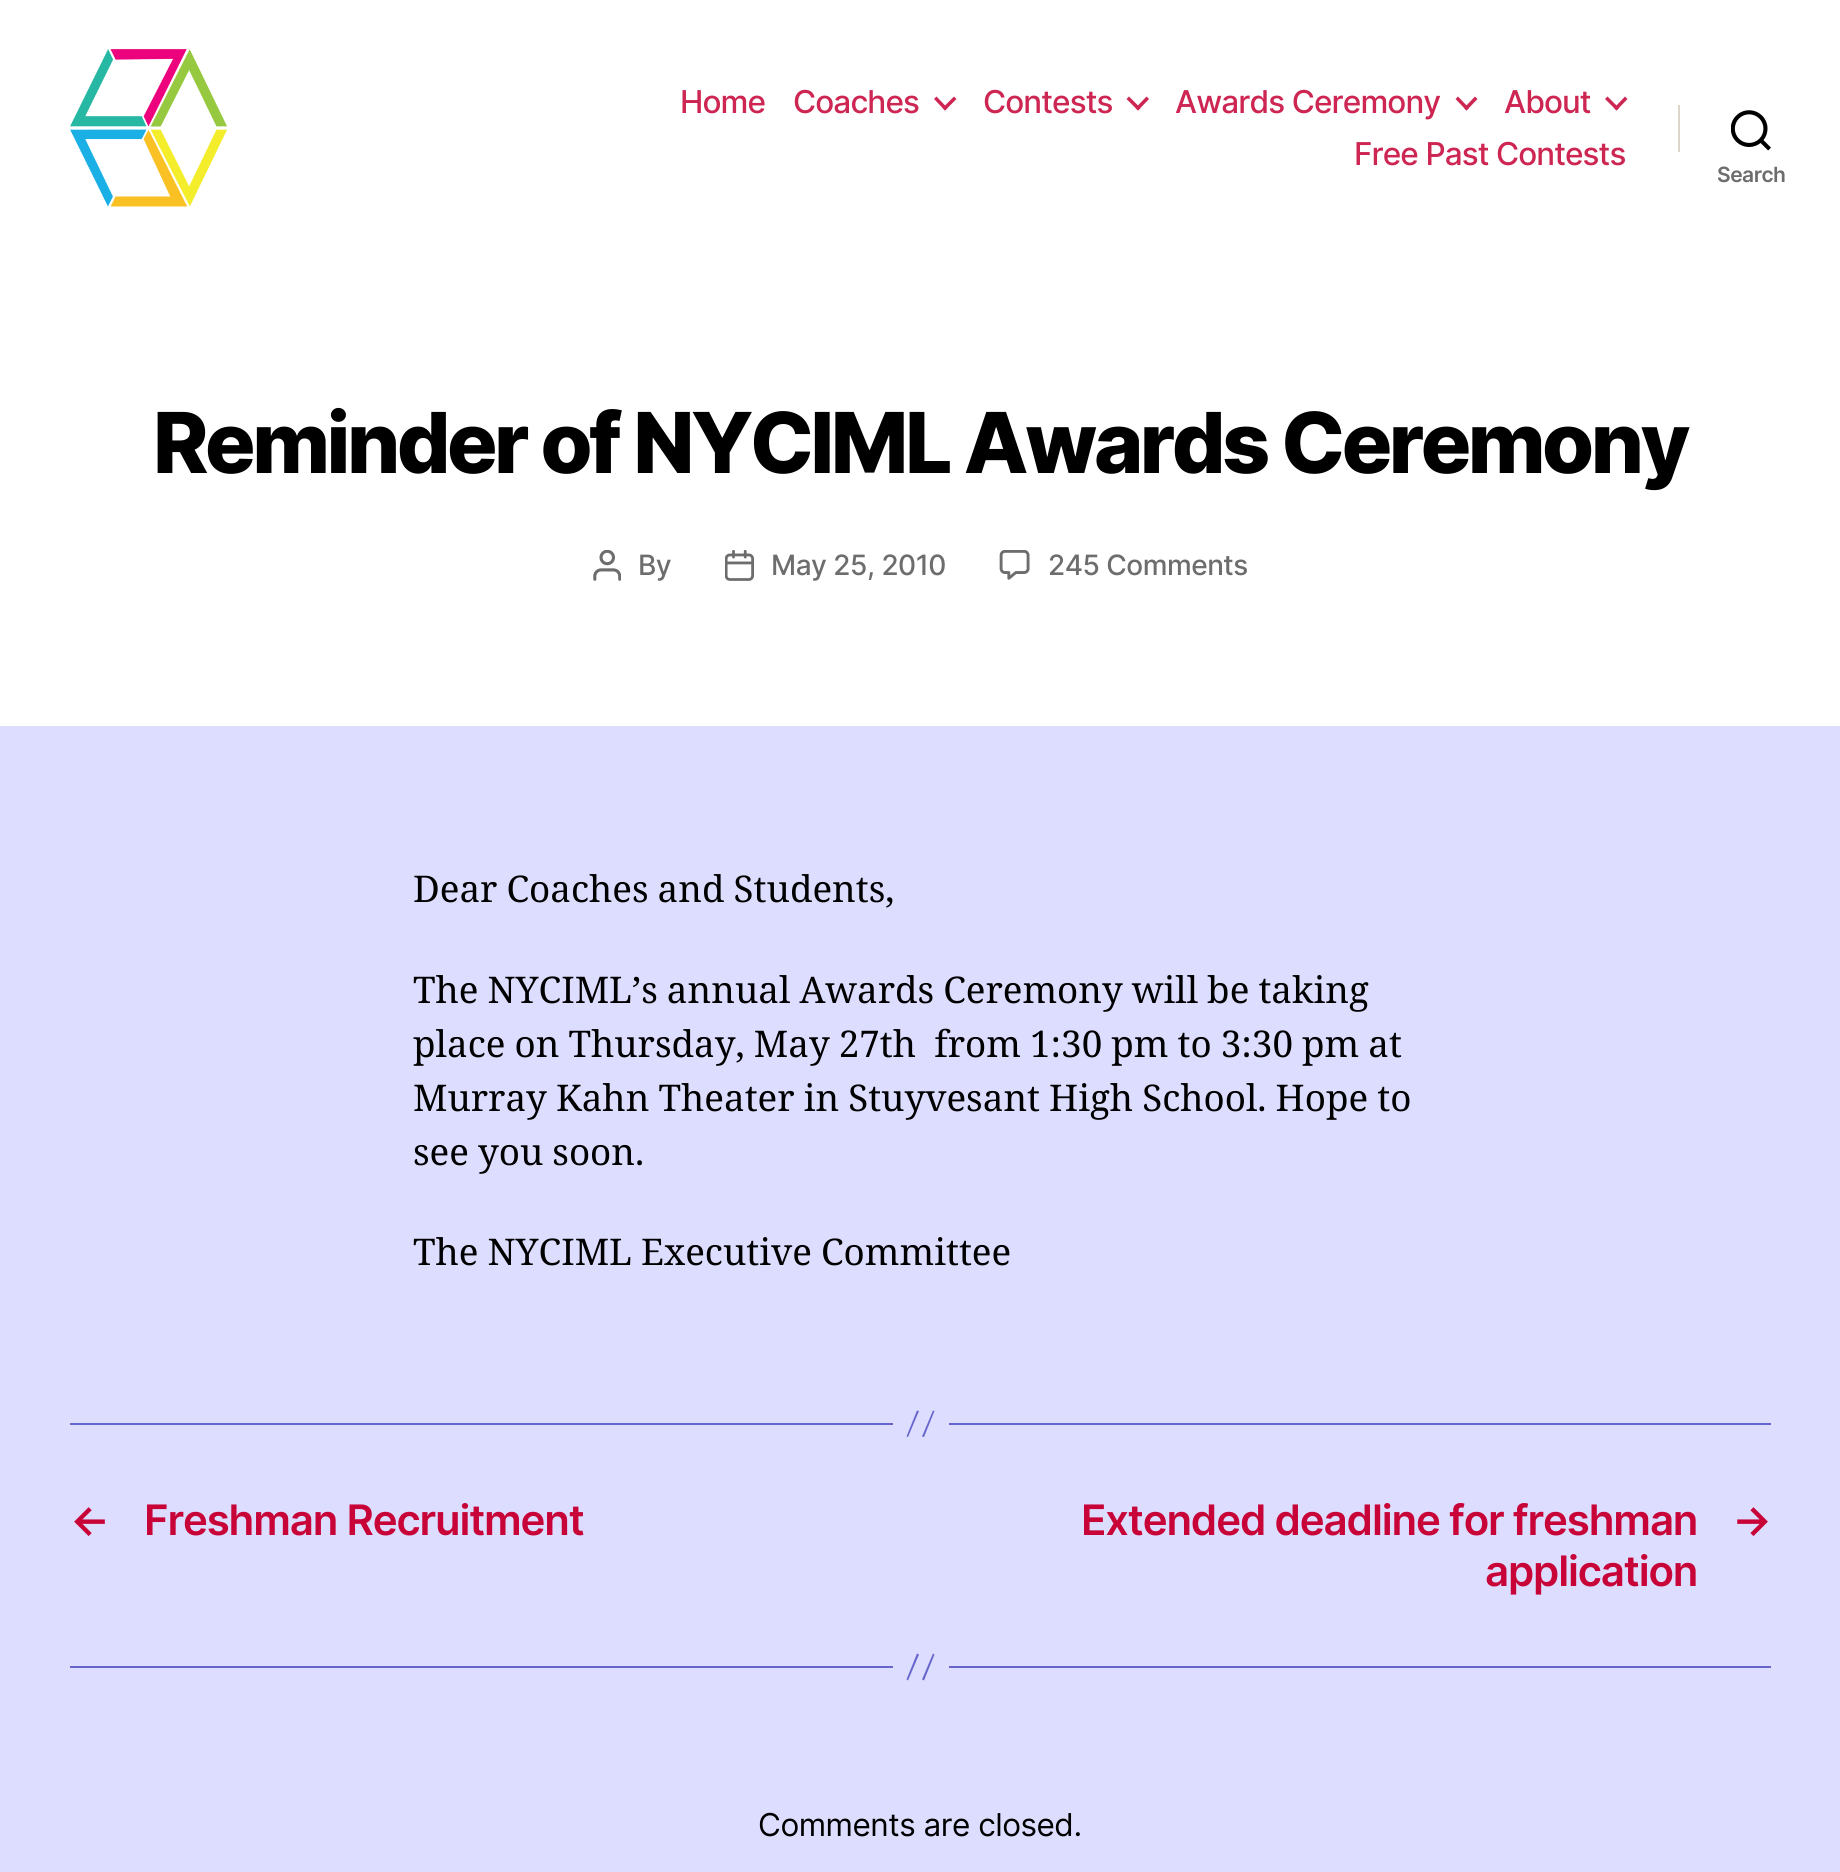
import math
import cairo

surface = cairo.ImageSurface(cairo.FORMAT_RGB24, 1840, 1872)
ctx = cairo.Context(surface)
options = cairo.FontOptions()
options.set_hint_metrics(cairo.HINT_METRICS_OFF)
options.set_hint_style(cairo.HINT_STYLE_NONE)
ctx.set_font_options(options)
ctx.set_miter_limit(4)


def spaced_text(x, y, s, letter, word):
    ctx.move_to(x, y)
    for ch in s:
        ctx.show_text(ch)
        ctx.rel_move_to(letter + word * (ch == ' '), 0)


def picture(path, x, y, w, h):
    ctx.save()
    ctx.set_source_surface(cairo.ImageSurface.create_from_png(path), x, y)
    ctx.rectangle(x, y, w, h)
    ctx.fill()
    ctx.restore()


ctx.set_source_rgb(0.867, 0.867, 1)
ctx.paint()
ctx.set_source_rgb(1, 1, 1)
ctx.rectangle(0, 0, 1840, 726)
ctx.fill()
picture("img1.png", 70, 49, 157, 158)
ctx.select_font_face("Inter Medium")
ctx.set_font_size(31.5)
ctx.set_source_rgb(0.804, 0.149, 0.325)
spaced_text(680, 113, "Home", -0.9, 0)
spaced_text(793, 113, "Coaches", -0.9, 0)
ctx.new_path()
ctx.move_to(934, 99)
ctx.line_to(936.5, 96.5)
ctx.line_to(947.5, 108)
ctx.line_to(945, 110.5)
ctx.close_path()
ctx.fill()
ctx.new_path()
ctx.move_to(942.5, 108)
ctx.line_to(954, 96.5)
ctx.line_to(956.5, 99)
ctx.line_to(945, 110.5)
ctx.close_path()
ctx.fill()
spaced_text(983, 113, "Contests", -0.9, 0)
ctx.new_path()
ctx.move_to(1126.5, 99)
ctx.line_to(1129, 96.5)
ctx.line_to(1140.5, 108)
ctx.line_to(1138, 110.5)
ctx.close_path()
ctx.fill()
ctx.new_path()
ctx.move_to(1135.5, 108)
ctx.line_to(1146.5, 96.5)
ctx.line_to(1149, 99)
ctx.line_to(1138, 110.5)
ctx.close_path()
ctx.fill()
spaced_text(1175, 113, "Awards Ceremony", -0.9, 0)
ctx.new_path()
ctx.move_to(1455.5, 99)
ctx.line_to(1458, 96.5)
ctx.line_to(1469, 108)
ctx.line_to(1466.5, 110.5)
ctx.close_path()
ctx.fill()
ctx.new_path()
ctx.move_to(1464, 108)
ctx.line_to(1475, 96.5)
ctx.line_to(1477.5, 99)
ctx.line_to(1466.5, 110.5)
ctx.close_path()
ctx.fill()
spaced_text(1504, 113, "About", -0.9, 0)
ctx.new_path()
ctx.move_to(1605, 99)
ctx.line_to(1607.5, 96.5)
ctx.line_to(1619, 108)
ctx.line_to(1616.5, 110.5)
ctx.close_path()
ctx.fill()
ctx.new_path()
ctx.move_to(1614, 108)
ctx.line_to(1625, 96.5)
ctx.line_to(1627.5, 99)
ctx.line_to(1616.5, 110.5)
ctx.close_path()
ctx.fill()
spaced_text(1354, 165, "Free Past Contests", -0.9, 0)
ctx.set_source_rgb(0.863, 0.843, 0.792)
ctx.rectangle(1678, 105, 2, 47)
ctx.fill()
picture("img2.png", 1731, 110, 40, 41)
ctx.select_font_face("Inter SemiBold")
ctx.set_font_size(21)
ctx.set_source_rgb(0.427, 0.427, 0.427)
spaced_text(1717, 182, "Search", -0.5, 0)
ctx.select_font_face("Inter ExtraBold")
ctx.set_font_size(84)
ctx.set_source_rgb(0, 0, 0)
spaced_text(153, 473, "Reminder of NYCIML Awards Ceremony", -3.5, 0)
picture("img3.png", 593, 550, 28, 31)
ctx.select_font_face("Inter Medium")
ctx.set_font_size(28)
ctx.set_source_rgb(0.427, 0.427, 0.427)
spaced_text(638, 575, "By", -0.5, 0)
picture("img4.png", 725, 550, 29, 31)
spaced_text(771, 575, "May 25, 2010", -0.5, 0)
picture("img5.png", 999, 550, 31, 30)
spaced_text(1048, 575, "245 Comments", -0.5, 0)
ctx.select_font_face("Noto Serif")
ctx.set_font_size(36.75)
ctx.set_source_rgb(0, 0, 0)
spaced_text(413, 902, "Dear Coaches and Students,", 0, -0.5)
spaced_text(413, 1003, "The NYCIML’s annual Awards Ceremony will be taking", 0, -0.5)
spaced_text(413, 1057, "place on Thursday, May 27th  from 1:30 pm to 3:30 pm at", 0, -0.5)
spaced_text(413, 1111, "Murray Kahn Theater in Stuyvesant High School. Hope to", 0, -0.5)
spaced_text(413, 1165, "see you soon.", 0, -0.5)
spaced_text(413, 1265, "The NYCIML Executive Committee", 0, -0.5)
ctx.set_source_rgb(0.396, 0.396, 0.8)
ctx.rectangle(949, 1423, 822, 2)
ctx.fill()
ctx.rectangle(70, 1423, 823, 2)
ctx.fill()
ctx.new_path()
ctx.move_to(917, 1410.5)
ctx.line_to(919, 1411)
ctx.line_to(908, 1437)
ctx.line_to(906.5, 1436.5)
ctx.close_path()
ctx.move_to(933, 1410.5)
ctx.line_to(934.5, 1411)
ctx.line_to(924, 1437)
ctx.line_to(922, 1436.5)
ctx.close_path()
ctx.fill()
ctx.select_font_face("Inter SemiBold")
ctx.set_font_size(42)
ctx.set_source_rgb(0.784, 0.012, 0.216)
spaced_text(70, 1535, "←", -1.15, 0)
spaced_text(144, 1535, "Freshman Recruitment", -1.15, 0)
spaced_text(1081, 1535, "Extended deadline for freshman", -1.15, 0)
spaced_text(1485, 1586, "application", -1.15, 0)
spaced_text(1732, 1535, "→", -1.15, 0)
ctx.set_source_rgb(0.396, 0.396, 0.8)
ctx.rectangle(949, 1666, 822, 2)
ctx.fill()
ctx.rectangle(70, 1666, 823, 2)
ctx.fill()
ctx.new_path()
ctx.move_to(917, 1653.5)
ctx.line_to(919, 1654.5)
ctx.line_to(908, 1680.5)
ctx.line_to(906.5, 1679.5)
ctx.close_path()
ctx.move_to(933, 1653.5)
ctx.line_to(934.5, 1654.5)
ctx.line_to(924, 1680.5)
ctx.line_to(922, 1679.5)
ctx.close_path()
ctx.fill()
ctx.select_font_face("Inter")
ctx.set_font_size(31.5)
ctx.set_source_rgb(0, 0, 0)
spaced_text(758, 1836, "Comments are closed.", -0.5, 0)
surface.write_to_png("page.png")
